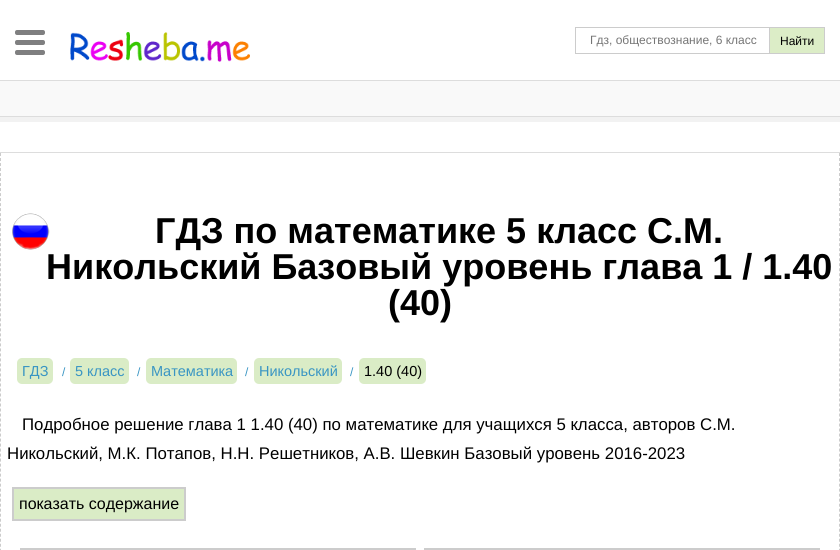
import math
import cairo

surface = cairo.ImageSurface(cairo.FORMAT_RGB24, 840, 550)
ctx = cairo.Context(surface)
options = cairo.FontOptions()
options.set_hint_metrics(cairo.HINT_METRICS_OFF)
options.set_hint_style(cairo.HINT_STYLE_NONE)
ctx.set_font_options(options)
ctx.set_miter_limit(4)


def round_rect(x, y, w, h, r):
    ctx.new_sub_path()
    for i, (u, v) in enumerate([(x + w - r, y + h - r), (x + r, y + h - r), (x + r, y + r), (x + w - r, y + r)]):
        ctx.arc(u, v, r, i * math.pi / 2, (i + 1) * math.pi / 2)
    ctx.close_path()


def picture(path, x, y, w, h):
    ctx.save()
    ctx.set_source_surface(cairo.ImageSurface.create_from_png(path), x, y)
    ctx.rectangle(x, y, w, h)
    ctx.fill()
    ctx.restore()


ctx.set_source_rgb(0.973, 0.973, 0.976)
ctx.paint()
ctx.set_source_rgb(1, 1, 1)
ctx.rectangle(0, 0, 840, 80)
ctx.fill()
ctx.set_source_rgb(0.867, 0.867, 0.867)
ctx.rectangle(0, 80, 840, 1)
ctx.fill()
ctx.set_source_rgb(0.498, 0.498, 0.502)
round_rect(15, 30, 30, 5, 2)
ctx.fill()
round_rect(15, 40, 30, 5, 2)
ctx.fill()
round_rect(15, 50, 30, 5, 2)
ctx.fill()
picture("img1.png", 70, 32, 180, 30)
ctx.rectangle(575.5, 27.5, 249, 26)
ctx.set_source_rgb(0.8, 0.8, 0.8)
ctx.set_line_width(1)
ctx.stroke()
ctx.select_font_face("Liberation Sans")
ctx.set_font_size(12)
ctx.set_source_rgb(0.459, 0.459, 0.459)
ctx.move_to(590, 44)
ctx.show_text("Гдз, обществознание, 6 класс")
ctx.set_source_rgb(0.863, 0.929, 0.78)
ctx.rectangle(770, 28, 54, 25)
ctx.fill()
ctx.set_source_rgb(0.8, 0.8, 0.8)
ctx.rectangle(769, 28, 1, 25)
ctx.fill()
ctx.set_source_rgb(0, 0, 0)
ctx.move_to(780, 45)
ctx.show_text("Найти")
ctx.set_source_rgb(1, 1, 1)
ctx.rectangle(0, 122, 840, 30)
ctx.fill()
ctx.set_source_rgb(0.867, 0.867, 0.867)
ctx.rectangle(0, 116, 840, 1)
ctx.fill()
ctx.rectangle(0, 152, 840, 1)
ctx.fill()
ctx.set_source_rgb(0.949, 0.949, 0.949)
ctx.rectangle(0, 117, 840, 5)
ctx.fill()
ctx.set_source_rgb(1, 1, 1)
ctx.rectangle(0, 153, 840, 397)
ctx.fill()
ctx.new_path()
ctx.move_to(839.5, 153)
ctx.line_to(839.5, 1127)
ctx.set_source_rgb(0.8, 0.8, 0.8)
ctx.set_dash([3, 2.01])
ctx.stroke()
ctx.new_path()
ctx.move_to(0.5, 153)
ctx.line_to(0.5, 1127)
ctx.stroke()
picture("img2.png", 12, 213, 38, 37)
ctx.select_font_face("Liberation Sans", cairo.FONT_SLANT_NORMAL, cairo.FONT_WEIGHT_BOLD)
ctx.set_font_size(36)
ctx.set_source_rgb(0, 0, 0)
ctx.move_to(155, 243)
ctx.show_text("ГДЗ по математике 5 класс С.М.")
ctx.move_to(46, 279)
ctx.show_text("Никольский Базовый уровень глава 1 / 1.40")
ctx.move_to(388, 315)
ctx.show_text("(40)")
ctx.set_source_rgb(0.855, 0.922, 0.776)
round_rect(17, 358, 36, 26, 5)
ctx.fill()
ctx.select_font_face("Liberation Sans")
ctx.set_font_size(14.5)
ctx.set_source_rgb(0.224, 0.584, 0.765)
ctx.move_to(22, 376)
ctx.show_text("ГДЗ")
ctx.set_font_size(12)
ctx.move_to(62, 376)
ctx.show_text("/")
ctx.set_source_rgb(0.855, 0.922, 0.776)
round_rect(70, 358, 59, 26, 5)
ctx.fill()
ctx.set_font_size(14.5)
ctx.set_source_rgb(0.224, 0.584, 0.765)
ctx.move_to(75, 376)
ctx.show_text("5 класс")
ctx.set_font_size(12)
ctx.move_to(137, 376)
ctx.show_text("/")
ctx.set_source_rgb(0.855, 0.922, 0.776)
round_rect(146, 358, 91, 26, 5)
ctx.fill()
ctx.set_font_size(14.5)
ctx.set_source_rgb(0.224, 0.584, 0.765)
ctx.move_to(151, 376)
ctx.show_text("Математика")
ctx.set_font_size(12)
ctx.move_to(245, 376)
ctx.show_text("/")
ctx.set_source_rgb(0.855, 0.922, 0.776)
round_rect(254, 358, 88, 26, 5)
ctx.fill()
ctx.set_font_size(14.5)
ctx.set_source_rgb(0.224, 0.584, 0.765)
ctx.move_to(259, 376)
ctx.show_text("Никольский")
ctx.set_font_size(12)
ctx.move_to(350, 376)
ctx.show_text("/")
ctx.set_source_rgb(0.855, 0.922, 0.776)
round_rect(359, 358, 67, 26, 5)
ctx.fill()
ctx.set_font_size(14.5)
ctx.set_source_rgb(0, 0, 0)
ctx.move_to(364, 376)
ctx.show_text("1.40 (40)")
ctx.set_font_size(16.8)
ctx.move_to(22, 430)
ctx.show_text("Подробное решение глава 1 1.40 (40) по математике для учащихся 5 класса, авторов С.М.")
ctx.move_to(7, 459)
ctx.show_text("Никольский, М.К. Потапов, Н.Н. Решетников, А.В. Шевкин Базовый уровень 2016-2023")
ctx.set_source_rgb(0.855, 0.922, 0.776)
ctx.rectangle(13, 488, 172, 32)
ctx.fill_preserve()
ctx.set_source_rgb(0.8, 0.8, 0.8)
ctx.set_line_width(2)
ctx.set_dash([])
ctx.stroke()
ctx.set_font_size(16)
ctx.set_source_rgb(0, 0, 0)
ctx.move_to(19, 509)
ctx.show_text("показать содержание")
ctx.rectangle(21, 549, 394, 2)
ctx.set_source_rgb(0.8, 0.8, 0.8)
ctx.stroke()
ctx.rectangle(425, 549, 394, 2)
ctx.stroke()
surface.write_to_png("page.png")
